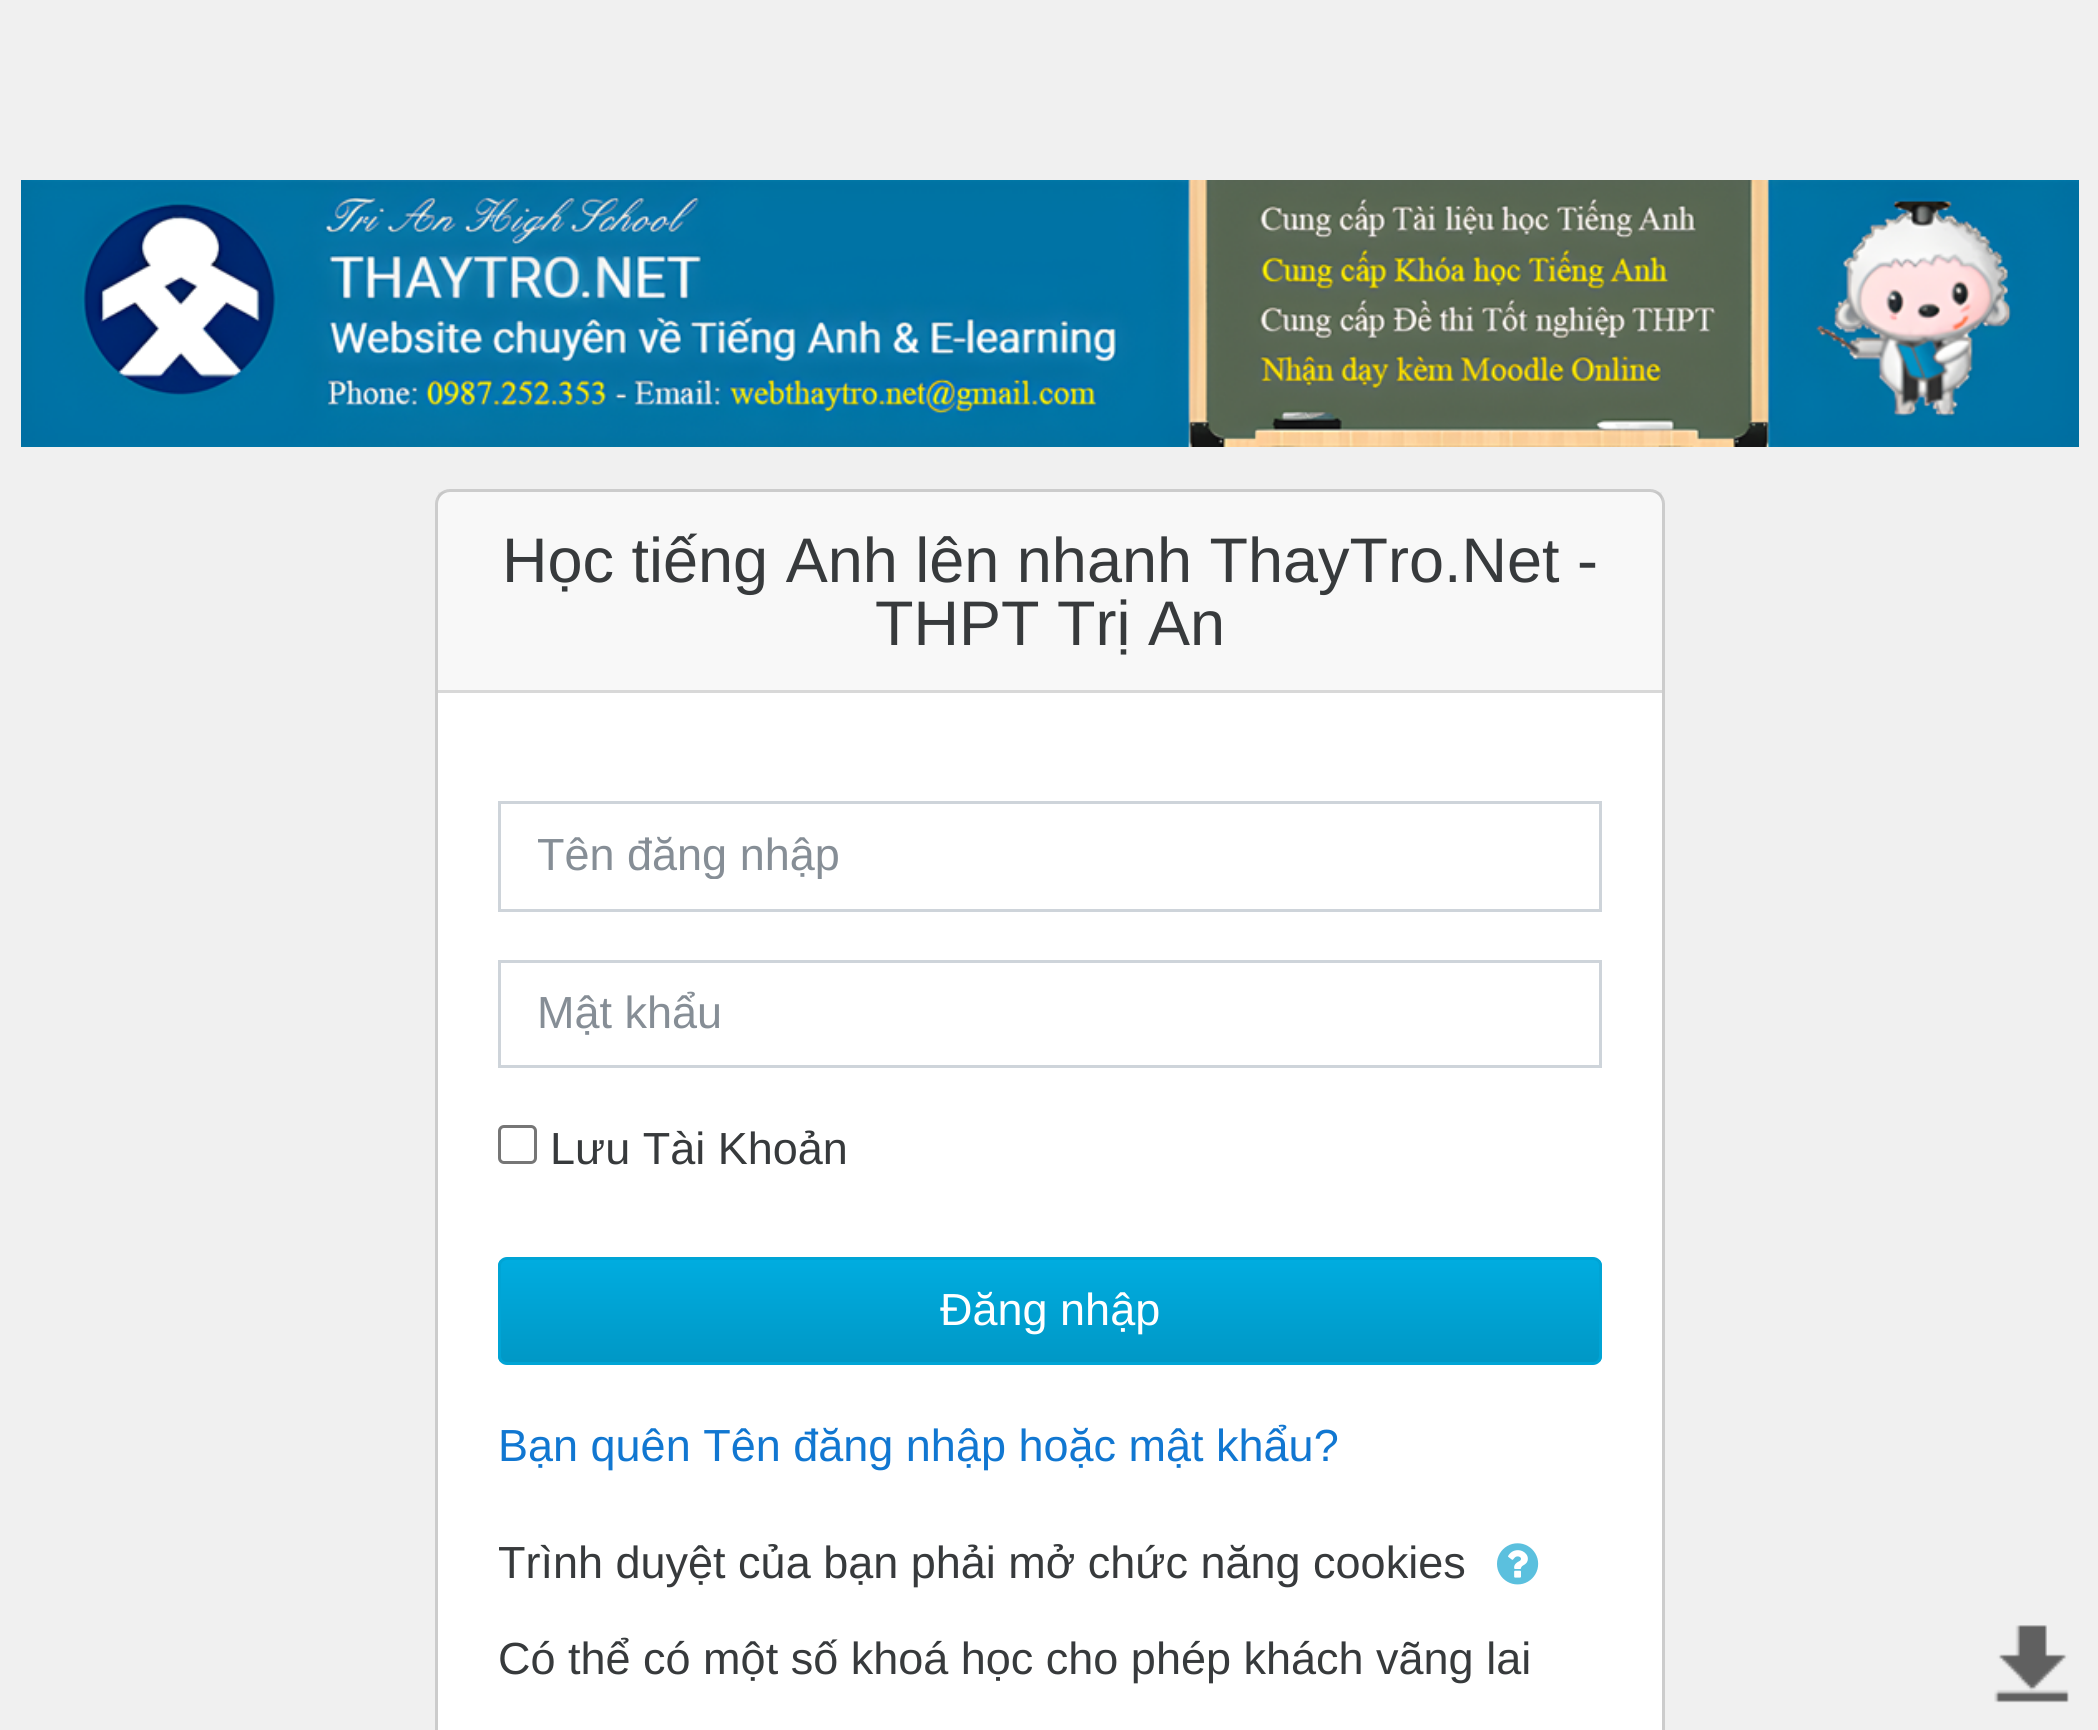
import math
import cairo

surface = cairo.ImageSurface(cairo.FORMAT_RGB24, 2098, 1730)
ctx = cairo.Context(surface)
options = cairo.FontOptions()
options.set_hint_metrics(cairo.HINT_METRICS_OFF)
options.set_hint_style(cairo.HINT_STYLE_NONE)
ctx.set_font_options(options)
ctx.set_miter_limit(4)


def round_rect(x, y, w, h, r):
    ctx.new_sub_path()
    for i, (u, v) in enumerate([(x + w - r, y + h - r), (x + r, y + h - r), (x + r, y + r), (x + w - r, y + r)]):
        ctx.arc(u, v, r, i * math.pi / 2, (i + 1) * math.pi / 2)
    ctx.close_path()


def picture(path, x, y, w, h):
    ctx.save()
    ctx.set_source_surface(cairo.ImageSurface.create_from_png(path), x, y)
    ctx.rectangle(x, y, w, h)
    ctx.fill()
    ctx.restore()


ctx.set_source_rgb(0.941, 0.941, 0.941)
ctx.paint()
picture("img1.png", 21, 180, 2058, 267)
ctx.set_source_rgb(1, 1, 1)
round_rect(436.5, 490.5, 1227, 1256, 13.5)
ctx.fill_preserve()
ctx.set_source_rgb(0.8, 0.8, 0.8)
ctx.set_line_width(3)
ctx.stroke()
ctx.set_source_rgba(0, 0, 0, 0.03)
ctx.rectangle(438, 492, 1224, 198)
ctx.fill()
ctx.set_source_rgb(0.847, 0.847, 0.847)
ctx.rectangle(438, 690, 1224, 3)
ctx.fill()
ctx.select_font_face("Liberation Sans")
ctx.set_font_size(63)
ctx.set_source_rgb(0.216, 0.227, 0.235)
ctx.move_to(502, 582)
ctx.show_text("Học tiếng Anh lên nhanh ThayTro.Net -")
ctx.move_to(875, 645)
ctx.show_text("THPT Trị An")
ctx.rectangle(499.5, 802.5, 1101, 108)
ctx.set_source_rgb(0.808, 0.831, 0.855)
ctx.stroke()
ctx.save()
ctx.rectangle(537, 828, 1026, 51)
ctx.clip()
ctx.set_font_size(45)
ctx.set_source_rgb(0.525, 0.557, 0.588)
ctx.move_to(537, 870)
ctx.show_text("Tên đăng nhập")
ctx.restore()
ctx.rectangle(499.5, 961.5, 1101, 105)
ctx.stroke()
ctx.set_font_size(45)
ctx.set_source_rgb(0.525, 0.557, 0.588)
ctx.move_to(537, 1028)
ctx.show_text("Mật khẩu")
round_rect(499.5, 1126.5, 36, 36, 4.5)
ctx.set_source_rgb(0.463, 0.463, 0.463)
ctx.stroke()
ctx.set_source_rgb(0.216, 0.227, 0.235)
ctx.move_to(550, 1164)
ctx.show_text("Lưu Tài Khoản")
ctx.save()
round_rect(498, 1257, 1104, 108, 9)
ctx.clip()
gradient = cairo.LinearGradient(1050, 1260, 1050, 1362)
gradient.add_color_stop_rgba(0, 0, 0.675, 0.875, 1)
gradient.add_color_stop_rgba(1, 0, 0.596, 0.776, 1)
ctx.set_source(gradient)
ctx.rectangle(498, 1260, 1104, 102)
ctx.fill()
ctx.restore()
round_rect(499.5, 1258.5, 1101, 105, 7.5)
ctx.set_source_rgb(0, 0.643, 0.835)
ctx.stroke()
ctx.set_source_rgb(1, 1, 1)
ctx.move_to(940, 1325)
ctx.show_text("Đăng nhập")
ctx.set_source_rgb(0.067, 0.467, 0.82)
ctx.move_to(498, 1461)
ctx.show_text("Bạn quên Tên đăng nhập hoặc mật khẩu?")
ctx.set_source_rgb(0.216, 0.227, 0.235)
ctx.move_to(498, 1578)
ctx.show_text("Trình duyệt của bạn phải mở chức năng cookies")
picture("img2.png", 1497, 1543, 42, 42)
ctx.move_to(498, 1674)
ctx.show_text("Có thể có một số khoá học cho phép khách vãng lai")
picture("img3.png", 1994, 1625, 75, 78)
surface.write_to_png("page.png")
